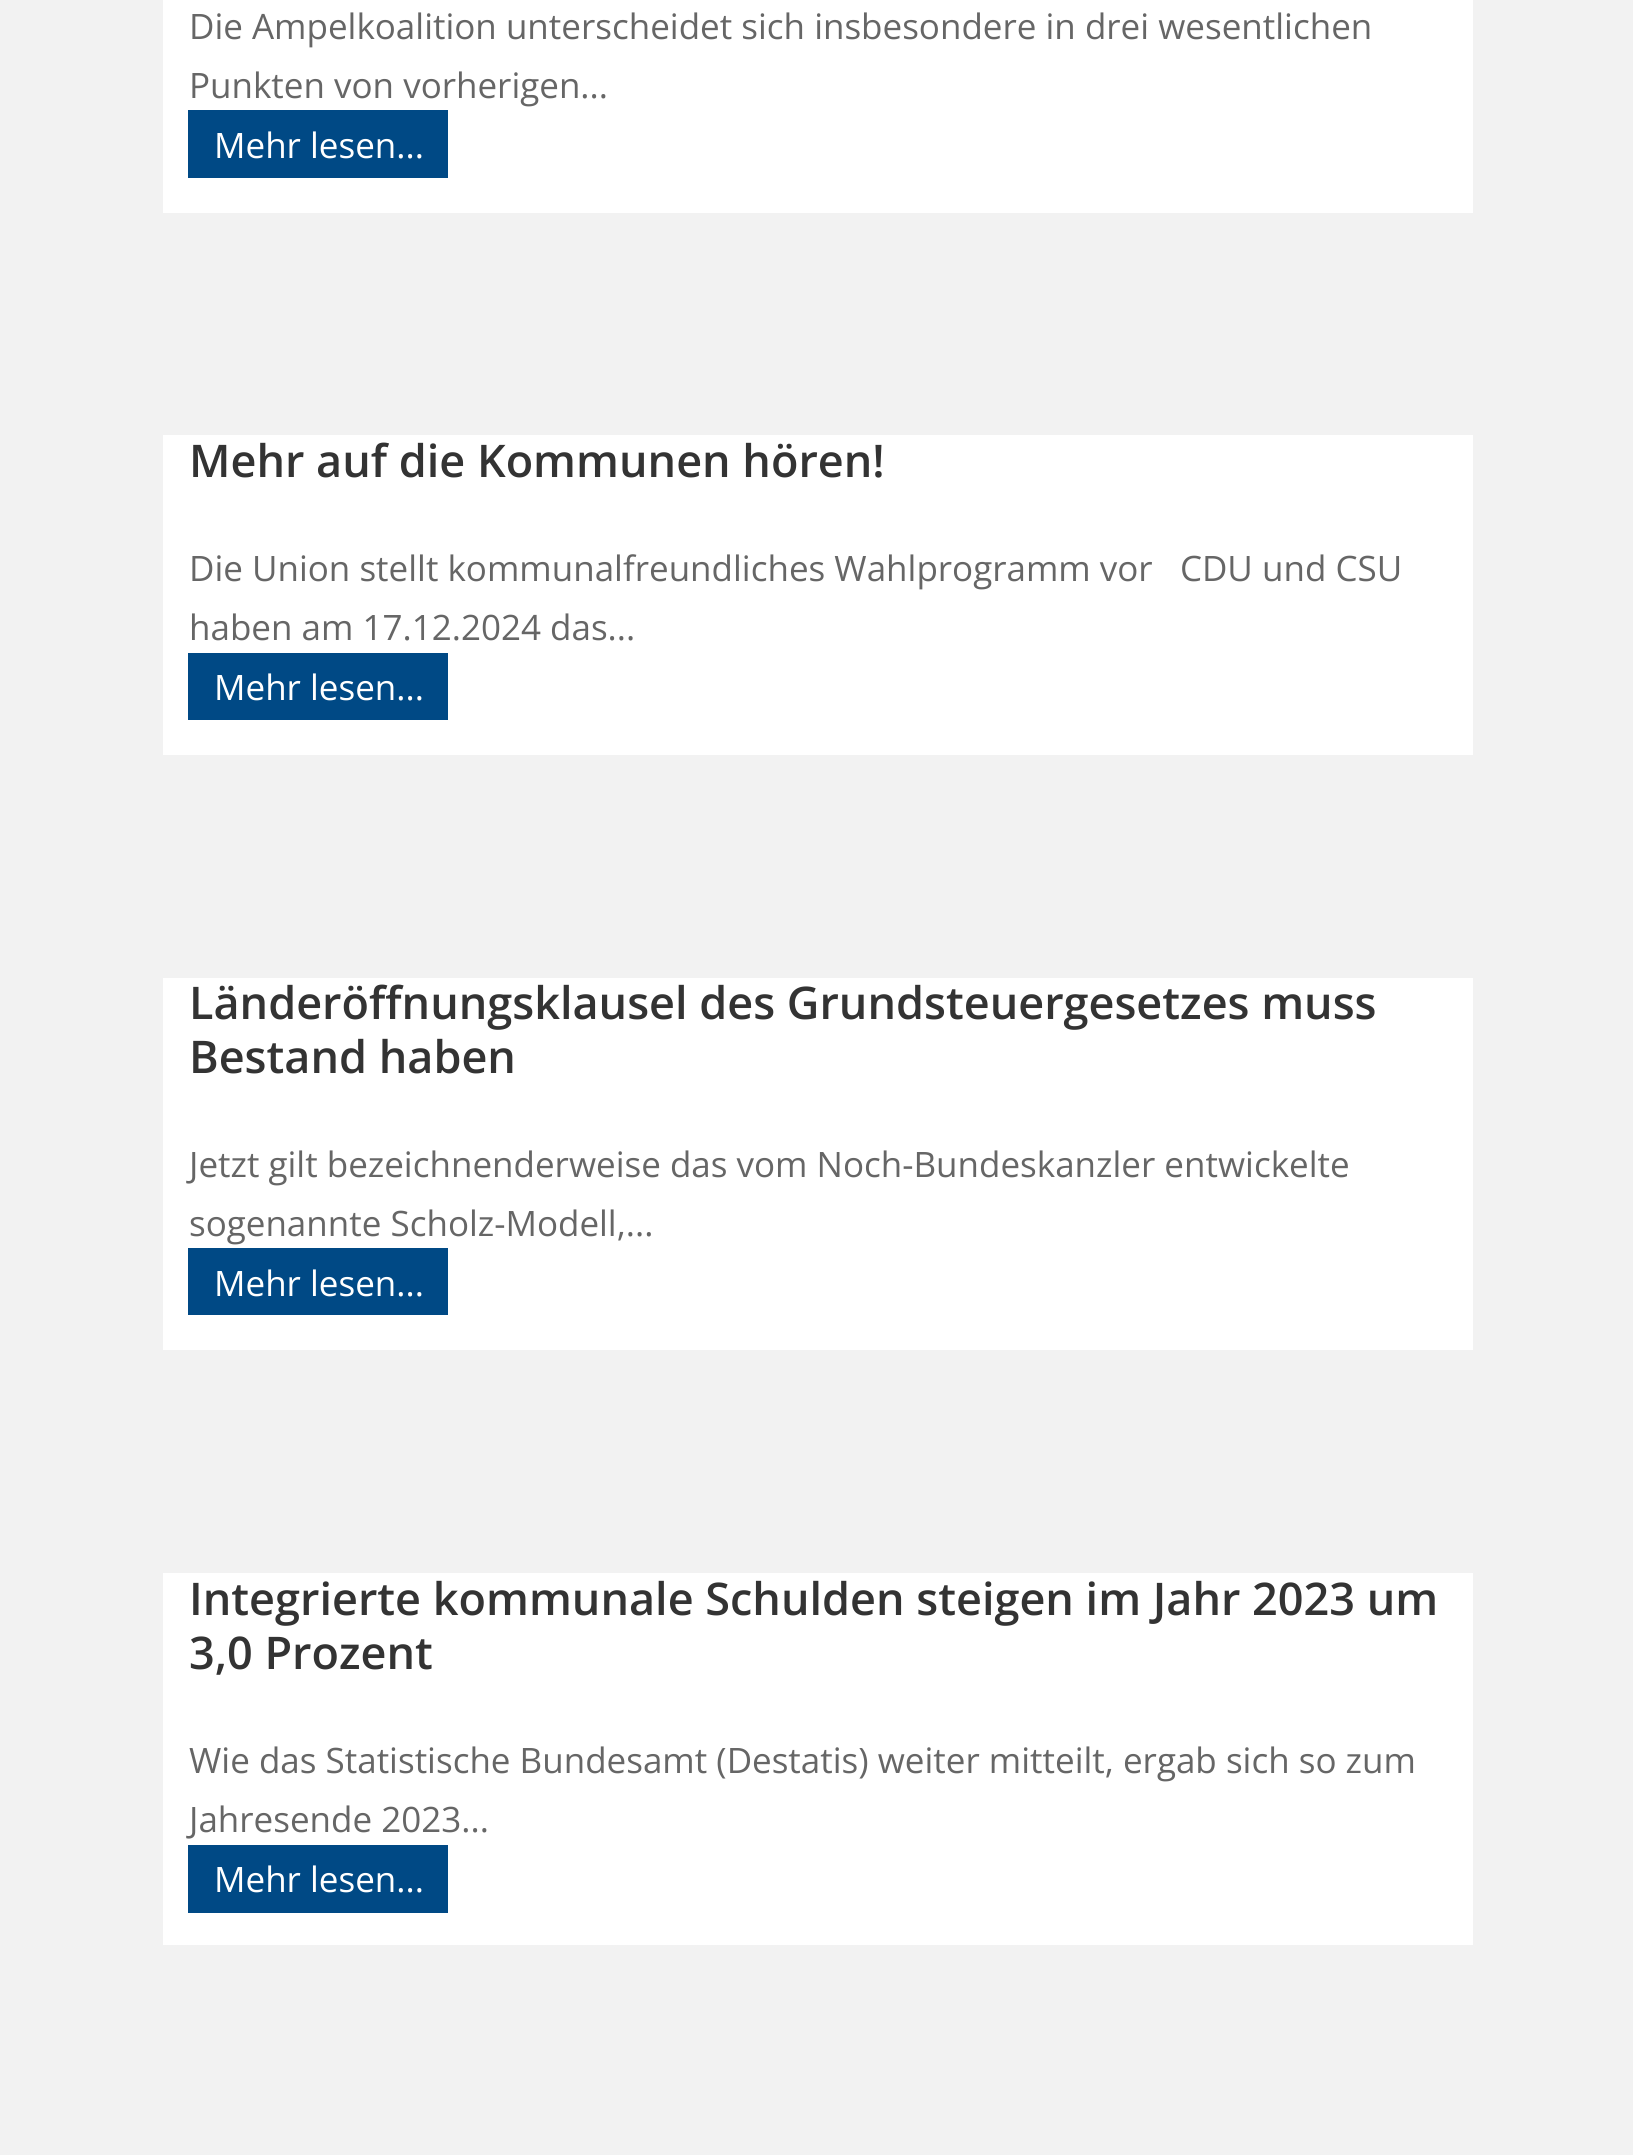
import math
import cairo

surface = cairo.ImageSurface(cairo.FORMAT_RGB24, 1633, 2155)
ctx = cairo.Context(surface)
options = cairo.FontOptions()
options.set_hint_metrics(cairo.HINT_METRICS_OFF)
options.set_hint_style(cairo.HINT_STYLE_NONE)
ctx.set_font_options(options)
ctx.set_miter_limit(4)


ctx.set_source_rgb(0.949, 0.949, 0.949)
ctx.paint()
ctx.set_source_rgb(1, 1, 1)
ctx.rectangle(163, 0, 1310, 213)
ctx.fill()
ctx.select_font_face("Open Sans")
ctx.set_font_size(35)
ctx.set_source_rgb(0.4, 0.4, 0.4)
ctx.move_to(189, 39)
ctx.show_text("Die Ampelkoalition unterscheidet sich insbesondere in drei wesentlichen")
ctx.move_to(189, 98)
ctx.show_text("Punkten von vorherigen...")
ctx.set_source_rgb(0, 0.286, 0.522)
ctx.rectangle(188, 110, 260, 68)
ctx.fill()
ctx.set_source_rgb(1, 1, 1)
ctx.move_to(214, 158)
ctx.show_text("Mehr lesen...")
ctx.rectangle(163, 435, 1310, 320)
ctx.fill()
ctx.select_font_face("Open Sans SemiBold")
ctx.set_font_size(45)
ctx.set_source_rgb(0.2, 0.2, 0.2)
ctx.move_to(189, 477)
ctx.show_text("Mehr auf die Kommunen hören!")
ctx.select_font_face("Open Sans")
ctx.set_font_size(35)
ctx.set_source_rgb(0.4, 0.4, 0.4)
ctx.move_to(189, 581)
ctx.show_text("Die Union stellt kommunalfreundliches Wahlprogramm vor   CDU und CSU")
ctx.move_to(189, 640)
ctx.show_text("haben am 17.12.2024 das...")
ctx.set_source_rgb(0, 0.286, 0.522)
ctx.rectangle(188, 653, 260, 67)
ctx.fill()
ctx.set_source_rgb(1, 1, 1)
ctx.move_to(214, 700)
ctx.show_text("Mehr lesen...")
ctx.rectangle(163, 978, 1310, 372)
ctx.fill()
ctx.select_font_face("Open Sans SemiBold")
ctx.set_font_size(45)
ctx.set_source_rgb(0.2, 0.2, 0.2)
ctx.move_to(189, 1019)
ctx.show_text("Länderöffnungsklausel des Grundsteuergesetzes muss")
ctx.move_to(189, 1073)
ctx.show_text("Bestand haben")
ctx.select_font_face("Open Sans")
ctx.set_font_size(35)
ctx.set_source_rgb(0.4, 0.4, 0.4)
ctx.move_to(189, 1177)
ctx.show_text("Jetzt gilt bezeichnenderweise das vom Noch-Bundeskanzler entwickelte")
ctx.move_to(189, 1236)
ctx.show_text("sogenannte Scholz-Modell,...")
ctx.set_source_rgb(0, 0.286, 0.522)
ctx.rectangle(188, 1248, 260, 67)
ctx.fill()
ctx.set_source_rgb(1, 1, 1)
ctx.move_to(214, 1296)
ctx.show_text("Mehr lesen...")
ctx.rectangle(163, 1573, 1310, 372)
ctx.fill()
ctx.select_font_face("Open Sans SemiBold")
ctx.set_font_size(45)
ctx.set_source_rgb(0.2, 0.2, 0.2)
ctx.move_to(189, 1615)
ctx.show_text("Integrierte kommunale Schulden steigen im Jahr 2023 um")
ctx.move_to(189, 1669)
ctx.show_text("3,0 Prozent")
ctx.select_font_face("Open Sans")
ctx.set_font_size(35)
ctx.set_source_rgb(0.4, 0.4, 0.4)
ctx.move_to(189, 1773)
ctx.show_text("Wie das Statistische Bundesamt (Destatis) weiter mitteilt, ergab sich so zum")
ctx.move_to(189, 1832)
ctx.show_text("Jahresende 2023...")
ctx.set_source_rgb(0, 0.286, 0.522)
ctx.rectangle(188, 1845, 260, 68)
ctx.fill()
ctx.set_source_rgb(1, 1, 1)
ctx.move_to(214, 1892)
ctx.show_text("Mehr lesen...")
surface.write_to_png("page.png")
